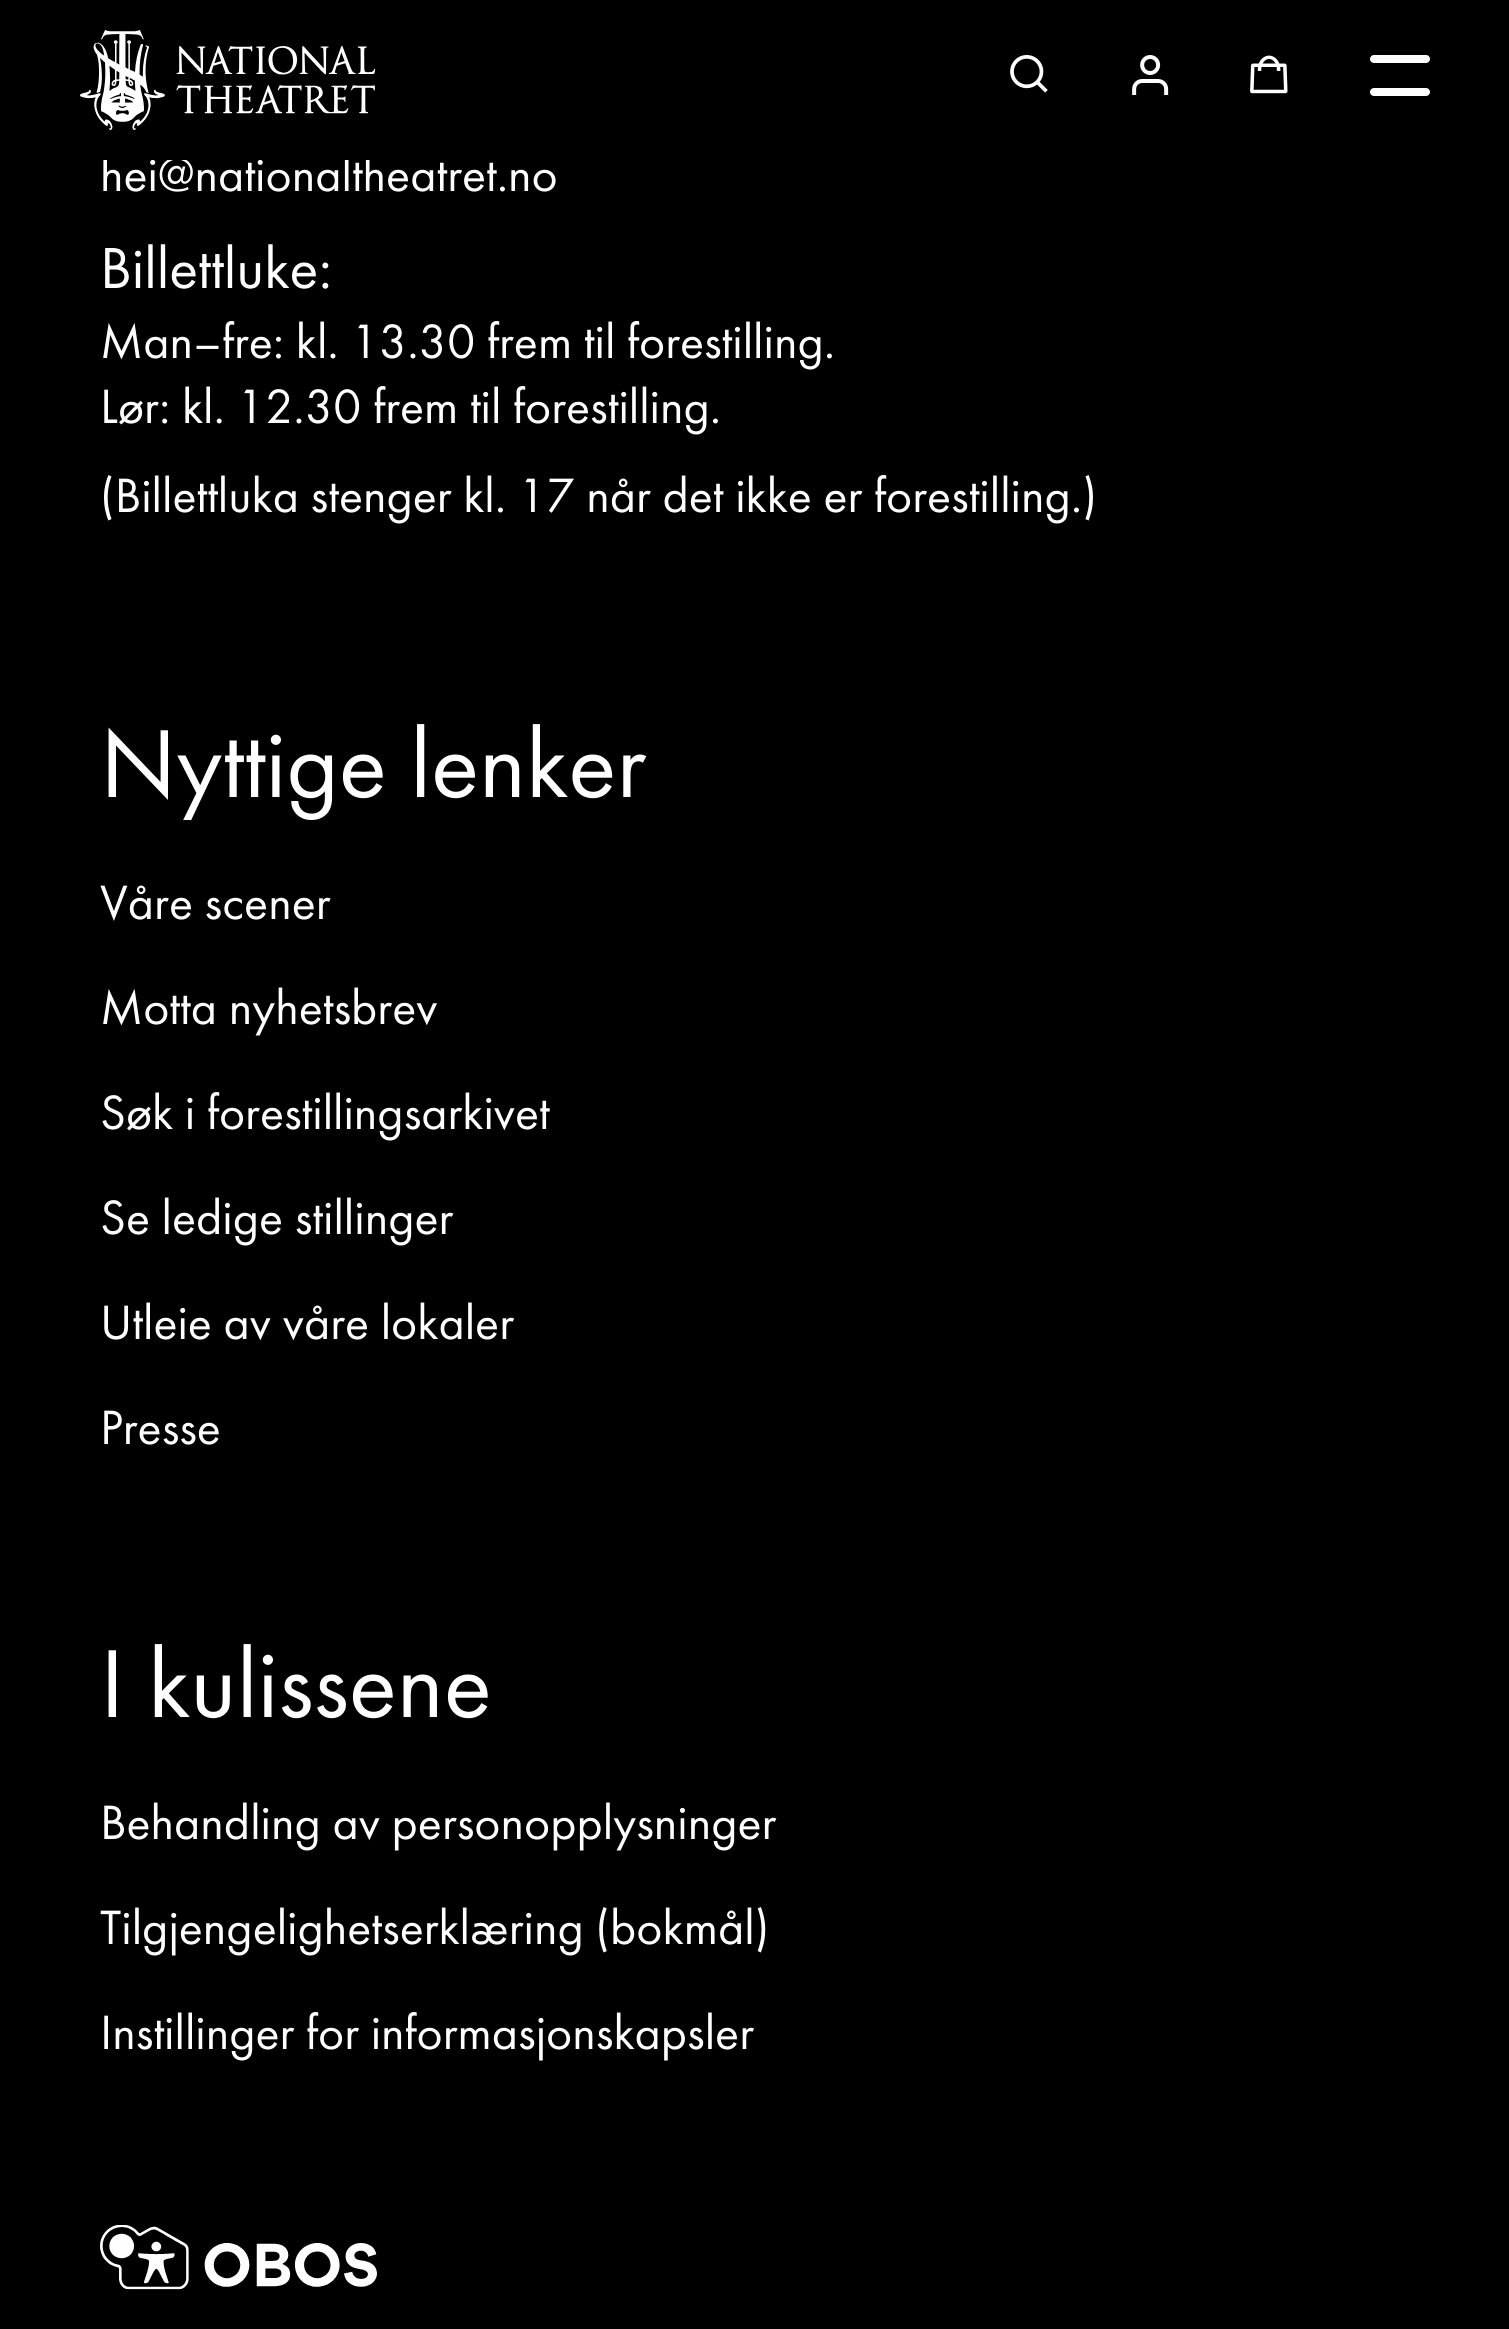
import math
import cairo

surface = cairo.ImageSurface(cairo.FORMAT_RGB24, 1509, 2329)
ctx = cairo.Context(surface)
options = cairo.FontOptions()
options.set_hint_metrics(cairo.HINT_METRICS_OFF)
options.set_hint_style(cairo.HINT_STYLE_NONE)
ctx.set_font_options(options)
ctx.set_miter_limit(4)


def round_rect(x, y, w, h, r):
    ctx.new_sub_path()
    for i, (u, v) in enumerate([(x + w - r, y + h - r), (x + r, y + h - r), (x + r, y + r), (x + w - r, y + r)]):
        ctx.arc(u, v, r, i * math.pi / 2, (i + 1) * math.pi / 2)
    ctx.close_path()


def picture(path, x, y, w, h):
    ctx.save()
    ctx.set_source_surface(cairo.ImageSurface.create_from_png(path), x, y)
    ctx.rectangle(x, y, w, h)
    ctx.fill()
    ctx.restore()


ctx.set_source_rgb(0, 0, 0)
ctx.paint()
ctx.select_font_face("Futura PT")
ctx.set_font_size(50)
ctx.set_source_rgb(1, 1, 1)
ctx.move_to(100, 191)
ctx.show_text("hei@nationaltheatret.no")
ctx.set_source_rgb(0, 0, 0)
ctx.rectangle(103, 154, 267, 6)
ctx.fill()
picture("img1.png", 80, 30, 295, 100)
picture("img2.png", 1010, 55, 38, 38)
picture("img3.png", 1132, 55, 37, 40)
picture("img4.png", 1250, 55, 38, 39)
ctx.set_source_rgb(1, 1, 1)
round_rect(1370, 55, 60, 8, 4)
ctx.fill()
round_rect(1370, 88, 60, 8, 4)
ctx.fill()
ctx.set_font_size(60)
ctx.move_to(100, 288)
ctx.show_text("Billettluke:")
ctx.set_font_size(50)
ctx.move_to(100, 358)
ctx.show_text("Man–fre: kl. 13.30 frem til forestilling.")
ctx.move_to(100, 423)
ctx.show_text("Lør: kl. 12.30 frem til forestilling.")
ctx.move_to(100, 512)
ctx.show_text("(Billettluka stenger kl. 17 når det ikke er forestilling.)")
ctx.set_font_size(100)
ctx.move_to(100, 797)
ctx.show_text("Nyttige lenker")
ctx.set_font_size(50)
ctx.move_to(100, 919)
ctx.show_text("Våre scener")
ctx.move_to(100, 1024)
ctx.show_text("Motta nyhetsbrev")
ctx.move_to(100, 1129)
ctx.show_text("Søk i forestillingsarkivet")
ctx.move_to(100, 1234)
ctx.show_text("Se ledige stillinger")
ctx.move_to(100, 1339)
ctx.show_text("Utleie av våre lokaler")
ctx.move_to(100, 1444)
ctx.show_text("Presse")
ctx.set_font_size(100)
ctx.move_to(100, 1717)
ctx.show_text("I kulissene")
ctx.set_font_size(50)
ctx.move_to(100, 1839)
ctx.show_text("Behandling av personopplysninger")
ctx.move_to(100, 1944)
ctx.show_text("Tilgjengelighetserklæring (bokmål)")
ctx.move_to(100, 2049)
ctx.show_text("Instillinger for informasjonskapsler")
picture("img5.png", 100, 2225, 277, 65)
surface.write_to_png("page.png")
